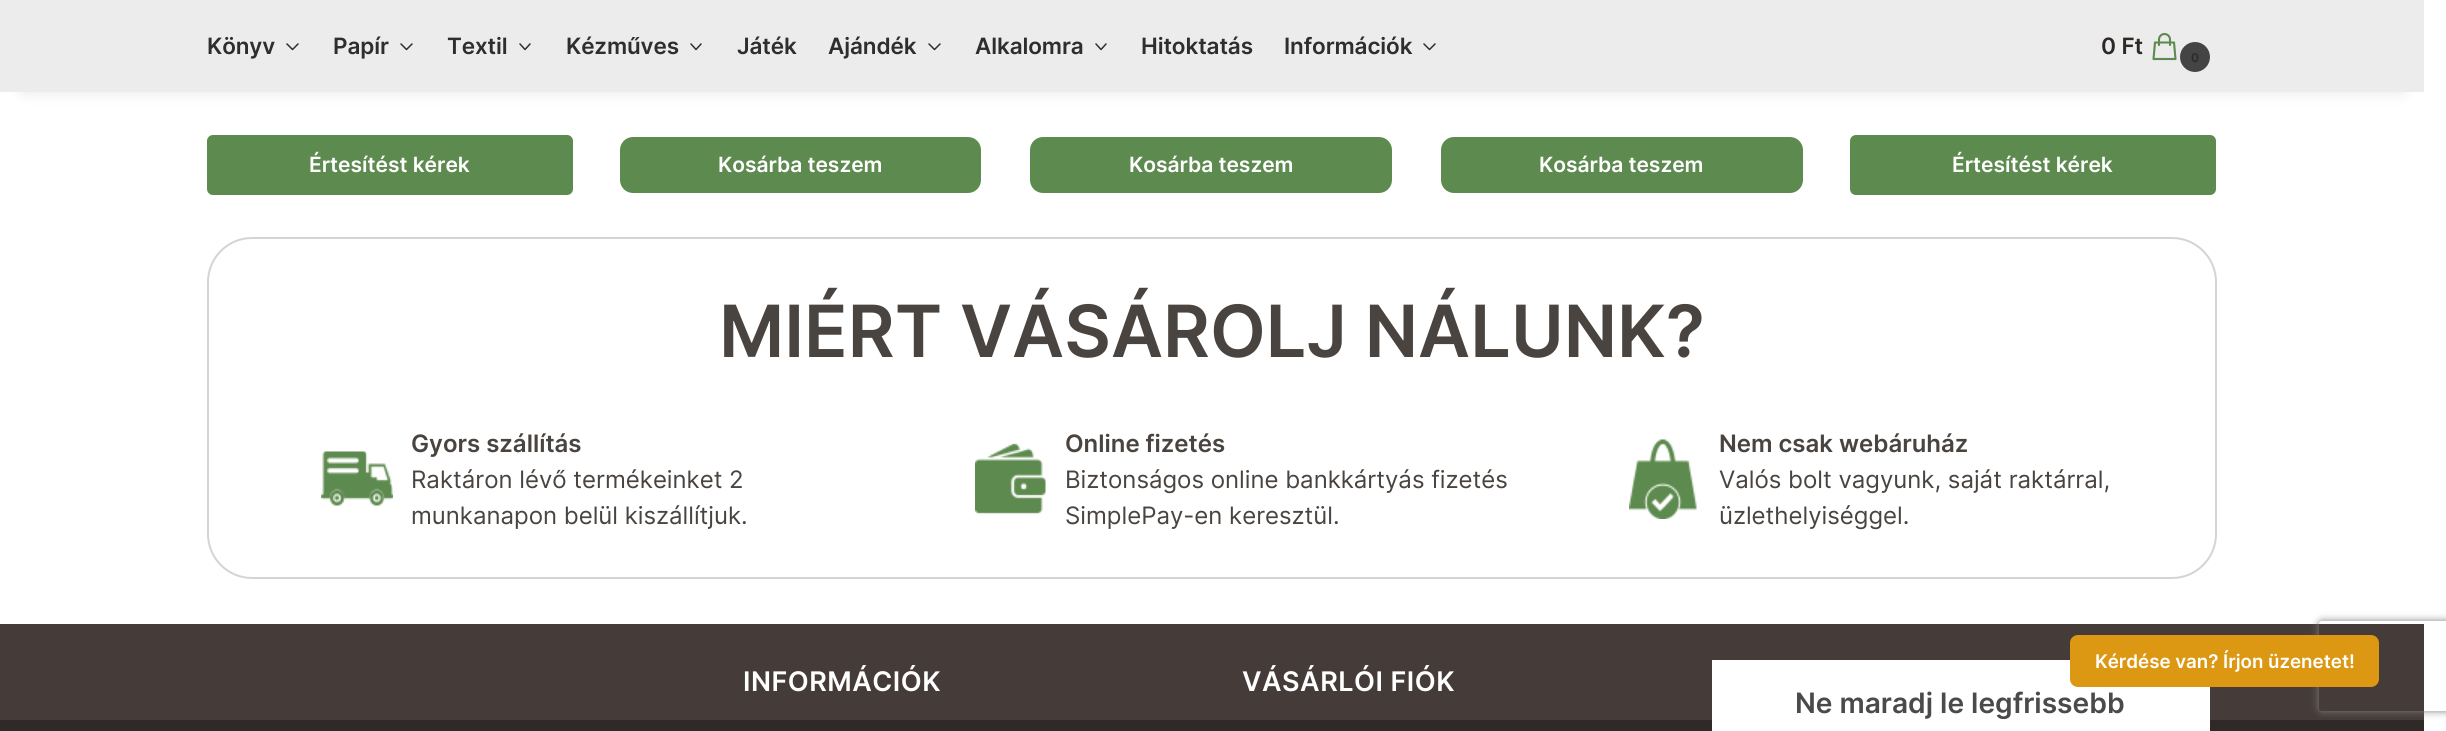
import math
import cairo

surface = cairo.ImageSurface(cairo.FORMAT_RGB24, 2446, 731)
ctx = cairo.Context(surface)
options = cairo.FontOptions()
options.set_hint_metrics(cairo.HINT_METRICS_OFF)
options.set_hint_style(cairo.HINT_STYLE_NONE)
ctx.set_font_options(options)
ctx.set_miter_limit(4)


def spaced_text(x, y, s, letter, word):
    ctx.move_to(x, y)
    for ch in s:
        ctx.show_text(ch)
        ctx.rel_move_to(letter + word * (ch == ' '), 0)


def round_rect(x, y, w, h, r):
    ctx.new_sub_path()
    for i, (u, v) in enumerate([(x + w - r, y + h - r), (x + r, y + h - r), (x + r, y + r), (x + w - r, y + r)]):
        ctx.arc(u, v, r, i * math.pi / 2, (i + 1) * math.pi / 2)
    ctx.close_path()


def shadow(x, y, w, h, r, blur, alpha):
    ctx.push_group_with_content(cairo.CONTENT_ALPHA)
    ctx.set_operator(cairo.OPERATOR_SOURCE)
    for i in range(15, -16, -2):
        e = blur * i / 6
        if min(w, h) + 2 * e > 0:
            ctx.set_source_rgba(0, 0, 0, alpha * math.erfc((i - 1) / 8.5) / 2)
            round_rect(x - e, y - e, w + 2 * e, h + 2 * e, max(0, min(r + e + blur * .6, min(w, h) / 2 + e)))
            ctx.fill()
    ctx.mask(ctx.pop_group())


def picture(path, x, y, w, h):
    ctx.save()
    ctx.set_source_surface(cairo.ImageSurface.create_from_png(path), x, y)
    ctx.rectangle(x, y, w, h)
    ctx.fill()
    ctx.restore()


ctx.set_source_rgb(1, 1, 1)
ctx.paint()
ctx.set_source_rgb(0, 0, 0)
shadow(23, 45, 2379, 47, 0, 7.5, 0.1)
ctx.set_source_rgb(0.922, 0.922, 0.922)
ctx.rectangle(0, 0, 2424, 92)
ctx.fill()
ctx.select_font_face("Inter SemiBold")
ctx.set_font_size(22.5)
ctx.set_source_rgb(0.18, 0.18, 0.18)
spaced_text(207, 54, "Könyv", -0.1, 0)
ctx.new_path()
ctx.move_to(298, 44)
ctx.line_to(292.5, 49.5)
ctx.line_to(287, 44)
ctx.set_line_width(1.5)
ctx.set_line_cap(cairo.LINE_CAP_ROUND)
ctx.set_line_join(cairo.LINE_JOIN_ROUND)
ctx.stroke()
spaced_text(333, 54, "Papír", -0.1, 0)
ctx.new_path()
ctx.move_to(412, 44)
ctx.line_to(406.5, 49.5)
ctx.line_to(401, 44)
ctx.stroke()
spaced_text(447, 54, "Textil", -0.1, 0)
ctx.new_path()
ctx.move_to(530, 44)
ctx.line_to(525, 49.5)
ctx.line_to(520, 44)
ctx.stroke()
spaced_text(566, 54, "Kézműves", -0.1, 0)
ctx.new_path()
ctx.move_to(701, 44)
ctx.line_to(696, 49.5)
ctx.line_to(691, 44)
ctx.stroke()
spaced_text(737, 54, "Játék", -0.1, 0)
spaced_text(828, 54, "Ajándék", -0.1, 0)
ctx.new_path()
ctx.move_to(940, 44)
ctx.line_to(934.5, 49.5)
ctx.line_to(929, 44)
ctx.stroke()
spaced_text(975, 54, "Alkalomra", -0.1, 0)
ctx.new_path()
ctx.move_to(1106, 44)
ctx.line_to(1101, 49.5)
ctx.line_to(1096, 44)
ctx.stroke()
spaced_text(1141, 54, "Hitoktatás", -0.1, 0)
spaced_text(1284, 54, "Információk", -0.1, 0)
ctx.new_path()
ctx.move_to(1435, 44)
ctx.line_to(1429.5, 49.5)
ctx.line_to(1424, 44)
ctx.stroke()
ctx.set_source_rgb(0.18, 0.161, 0.149)
spaced_text(2101, 54, "0 Ft", -0.1, 0)
ctx.new_path()
ctx.move_to(2170, 45)
ctx.line_to(2170, 39.5)
ctx.curve_to(2170, 36.5, 2167.5, 34, 2164.5, 34)
ctx.curve_to(2161.5, 34, 2159, 36.5, 2159, 39.5)
ctx.line_to(2159, 45)
ctx.move_to(2155, 42.5)
ctx.line_to(2174, 42.5)
ctx.line_to(2175.5, 59)
ctx.line_to(2153.5, 59)
ctx.close_path()
ctx.set_source_rgb(0.365, 0.541, 0.31)
ctx.set_line_width(2.1)
ctx.stroke()
ctx.set_source_rgb(0.267, 0.267, 0.267)
ctx.arc(2195, 57, 14, 0, 2 * math.pi)
ctx.fill_preserve()
ctx.set_line_width(2)
ctx.set_line_cap(cairo.LINE_CAP_BUTT)
ctx.set_line_join(cairo.LINE_JOIN_MITER)
ctx.stroke()
ctx.set_font_size(12)
ctx.set_source_rgb(0.18, 0.161, 0.149)
spaced_text(2191, 62, "0", -0.1, 0)
ctx.set_source_rgb(0.365, 0.541, 0.31)
round_rect(207, 135, 366, 60, 6)
ctx.fill()
ctx.set_font_size(21)
ctx.set_source_rgb(1, 1, 1)
ctx.move_to(309, 172)
ctx.show_text("Értesítést kérek")
ctx.set_source_rgb(0.365, 0.541, 0.31)
round_rect(619, 136, 363, 58, 14)
ctx.fill_preserve()
ctx.set_source_rgb(1, 1, 1)
ctx.stroke()
ctx.move_to(718, 172)
ctx.show_text("Kosárba teszem")
ctx.set_source_rgb(0.365, 0.541, 0.31)
round_rect(1029, 136, 364, 58, 14)
ctx.fill_preserve()
ctx.set_source_rgb(1, 1, 1)
ctx.stroke()
ctx.move_to(1129, 172)
ctx.show_text("Kosárba teszem")
ctx.set_source_rgb(0.365, 0.541, 0.31)
round_rect(1440, 136, 364, 58, 14)
ctx.fill_preserve()
ctx.set_source_rgb(1, 1, 1)
ctx.stroke()
ctx.move_to(1539, 172)
ctx.show_text("Kosárba teszem")
ctx.set_source_rgb(0.365, 0.541, 0.31)
round_rect(1850, 135, 366, 60, 6)
ctx.fill()
ctx.set_source_rgb(1, 1, 1)
ctx.move_to(1952, 172)
ctx.show_text("Értesítést kérek")
ctx.set_source_rgb(0.271, 0.231, 0.22)
ctx.rectangle(0, 624, 2424, 96)
ctx.fill()
ctx.set_source_rgb(0.184, 0.165, 0.153)
ctx.rectangle(0, 720, 2424, 11)
ctx.fill()
ctx.set_source_rgb(1, 1, 1)
ctx.rectangle(1712, 660, 498, 71)
ctx.fill()
ctx.save()
ctx.set_fill_rule(cairo.FILL_RULE_EVEN_ODD)
ctx.new_path()
ctx.move_to(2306, 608)
ctx.line_to(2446, 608)
ctx.line_to(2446, 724)
ctx.line_to(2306, 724)
ctx.close_path()
ctx.move_to(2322, 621)
ctx.line_to(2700, 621)
ctx.curve_to(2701.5, 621, 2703, 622.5, 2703, 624)
ctx.line_to(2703, 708)
ctx.curve_to(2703, 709.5, 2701.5, 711, 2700, 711)
ctx.line_to(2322, 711)
ctx.curve_to(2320.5, 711, 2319, 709.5, 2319, 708)
ctx.line_to(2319, 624)
ctx.curve_to(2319, 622.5, 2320.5, 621, 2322, 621)
ctx.close_path()
ctx.clip()
ctx.set_source_rgb(0.502, 0.502, 0.502)
shadow(2319, 621, 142, 90, 3, 4, 1)
ctx.restore()
ctx.set_source_rgb(0.863, 0.596, 0.078)
round_rect(2070, 635, 309, 52, 8)
ctx.fill()
ctx.set_font_size(18.75)
ctx.set_source_rgb(1, 1, 1)
ctx.move_to(2095, 668)
ctx.show_text("Kérdése van? Írjon üzenetet!")
round_rect(208, 238, 2008, 340, 44)
ctx.set_source_rgb(0.831, 0.831, 0.831)
ctx.stroke()
ctx.set_font_size(72)
ctx.set_source_rgb(0.286, 0.267, 0.251)
ctx.move_to(719, 357)
ctx.show_text("MIÉRT VÁSÁROLJ NÁLUNK?")
picture("img1.png", 321, 451, 72, 55)
ctx.set_font_size(24)
ctx.move_to(411, 452)
ctx.show_text("Gyors szállítás")
ctx.select_font_face("Inter")
ctx.move_to(411, 488)
ctx.show_text("Raktáron lévő termékeinket 2")
ctx.move_to(411, 524)
ctx.show_text("munkanapon belül kiszállítjuk.")
picture("img2.png", 975, 443, 71, 71)
ctx.select_font_face("Inter SemiBold")
ctx.move_to(1065, 452)
ctx.show_text("Online fizetés")
ctx.select_font_face("Inter")
ctx.move_to(1065, 488)
ctx.show_text("Biztonságos online bankkártyás fizetés")
ctx.move_to(1065, 524)
ctx.show_text("SimplePay-en keresztül.")
picture("img3.png", 1629, 439, 68, 80)
ctx.select_font_face("Inter SemiBold")
ctx.move_to(1719, 452)
ctx.show_text("Nem csak webáruház")
ctx.select_font_face("Inter")
ctx.move_to(1719, 488)
ctx.show_text("Valós bolt vagyunk, saját raktárral,")
ctx.move_to(1719, 524)
ctx.show_text("üzlethelyiséggel.")
ctx.select_font_face("Inter SemiBold")
ctx.set_font_size(27)
ctx.set_source_rgb(1, 1, 1)
spaced_text(743, 691, "INFORMÁCIÓK", 0.5, 0)
spaced_text(1242, 691, "VÁSÁRLÓI FIÓK", 0.5, 0)
ctx.set_font_size(28.1)
ctx.set_source_rgb(0.29, 0.29, 0.29)
ctx.move_to(1795, 713)
ctx.show_text("Ne maradj le legfrissebb")
surface.write_to_png("page.png")
